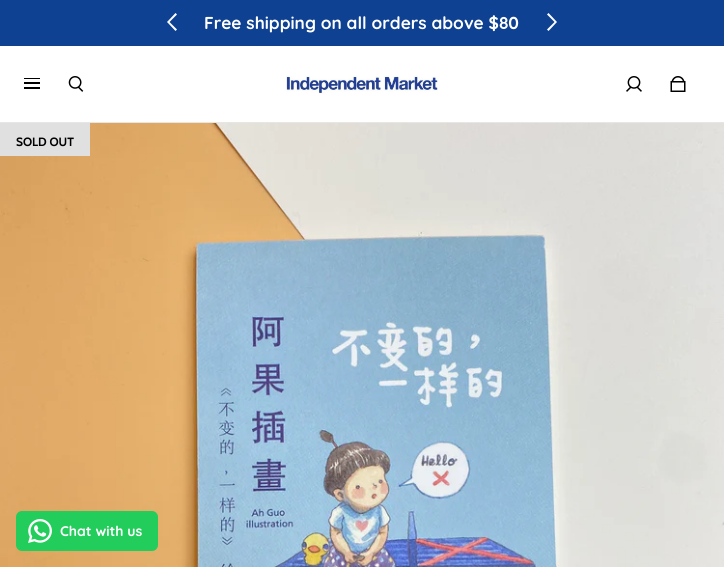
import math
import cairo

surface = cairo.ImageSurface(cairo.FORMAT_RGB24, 724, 567)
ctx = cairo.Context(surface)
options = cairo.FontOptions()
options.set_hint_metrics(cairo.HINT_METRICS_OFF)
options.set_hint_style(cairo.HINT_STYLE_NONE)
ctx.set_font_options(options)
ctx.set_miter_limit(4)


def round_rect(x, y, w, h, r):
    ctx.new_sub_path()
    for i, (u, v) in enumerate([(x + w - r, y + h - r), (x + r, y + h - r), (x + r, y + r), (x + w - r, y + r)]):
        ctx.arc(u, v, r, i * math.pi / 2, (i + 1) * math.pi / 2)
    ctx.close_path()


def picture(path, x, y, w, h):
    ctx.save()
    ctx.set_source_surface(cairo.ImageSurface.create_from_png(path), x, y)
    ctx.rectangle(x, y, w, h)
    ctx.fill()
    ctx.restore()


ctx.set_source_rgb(1, 1, 1)
ctx.paint()
ctx.set_source_rgb(0.055, 0.255, 0.569)
ctx.rectangle(0, 0, 724, 46)
ctx.fill()
ctx.set_source_rgb(1, 1, 1)
ctx.set_fill_rule(cairo.FILL_RULE_EVEN_ODD)
ctx.new_path()
ctx.move_to(169.5, 22)
ctx.line_to(177, 14.5)
ctx.line_to(175.5, 13)
ctx.line_to(167, 22)
ctx.line_to(175.5, 31)
ctx.line_to(177, 29.5)
ctx.close_path()
ctx.fill()
ctx.select_font_face("Quicksand", cairo.FONT_SLANT_NORMAL, cairo.FONT_WEIGHT_BOLD)
ctx.set_font_size(17.25)
ctx.move_to(204, 29)
ctx.show_text("Free shipping on all orders above $80")
ctx.new_path()
ctx.move_to(554.5, 22)
ctx.line_to(547, 29.5)
ctx.line_to(548.5, 31)
ctx.line_to(557, 22)
ctx.line_to(548.5, 13)
ctx.line_to(547, 14.5)
ctx.close_path()
ctx.fill()
ctx.set_source_rgb(0.902, 0.902, 0.902)
ctx.rectangle(0, 122, 724, 1)
ctx.fill()
ctx.set_source_rgb(0, 0, 0)
ctx.rectangle(24, 78, 16, 1)
ctx.fill()
ctx.rectangle(24, 82, 16, 2)
ctx.fill()
ctx.rectangle(24, 87, 16, 2)
ctx.fill()
picture("img1.png", 68, 76, 16, 16)
picture("img2.png", 286, 75, 152, 19)
picture("img3.png", 626, 76, 16, 16)
picture("img4.png", 670, 76, 16, 16)
picture("img5.png", 0, 123, 724, 444)
ctx.set_source_rgb(0.878, 0.878, 0.878)
ctx.rectangle(0, 123, 90, 33)
ctx.fill()
ctx.select_font_face("Cabin", cairo.FONT_SLANT_NORMAL, cairo.FONT_WEIGHT_BOLD)
ctx.set_font_size(12)
ctx.set_source_rgb(0, 0, 0)
ctx.move_to(16, 146)
ctx.show_text("SOLD OUT")
ctx.set_source_rgb(0.133, 0.804, 0.357)
round_rect(16, 511, 142, 40, 6)
ctx.fill()
picture("img6.png", 28, 519, 24, 24)
ctx.select_font_face("Quicksand", cairo.FONT_SLANT_NORMAL, cairo.FONT_WEIGHT_BOLD)
ctx.set_font_size(14)
ctx.set_source_rgb(1, 1, 1)
ctx.move_to(60, 536)
ctx.show_text("Chat with us")
surface.write_to_png("page.png")
